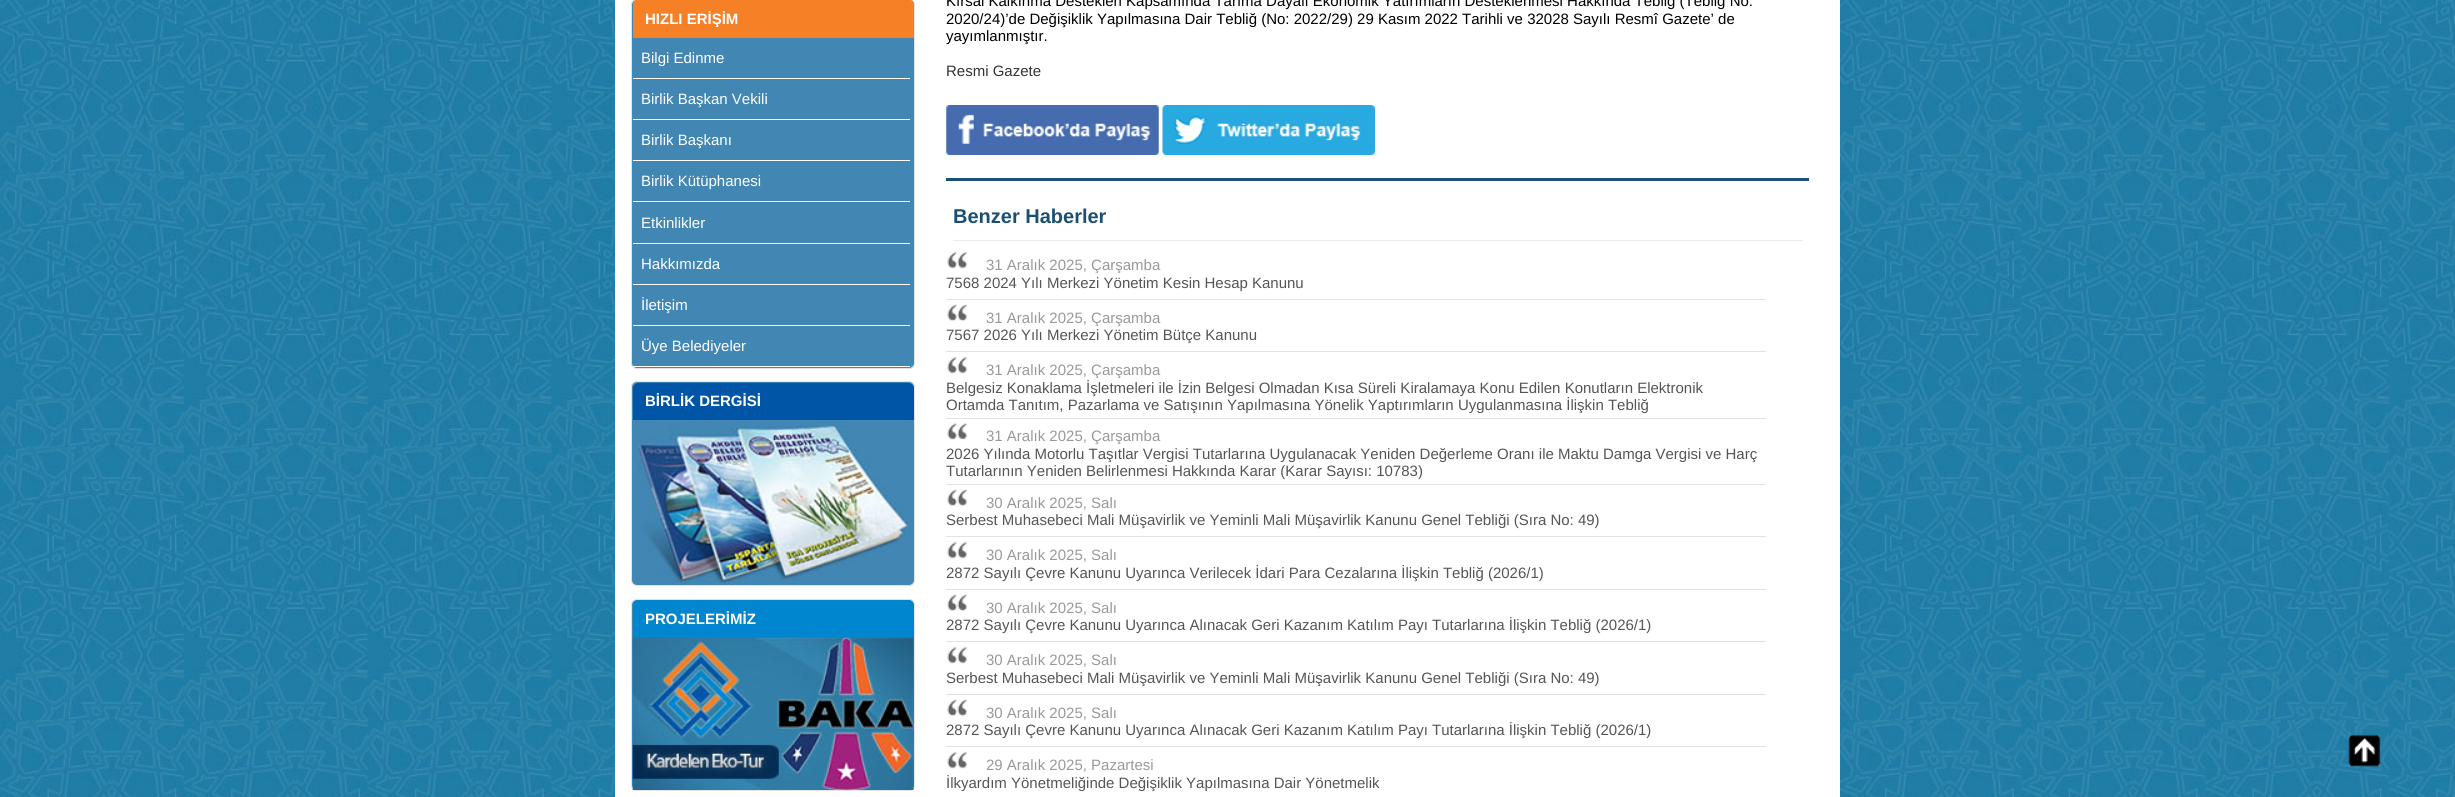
import math
import cairo

surface = cairo.ImageSurface(cairo.FORMAT_RGB24, 2455, 797)
ctx = cairo.Context(surface)
options = cairo.FontOptions()
options.set_hint_metrics(cairo.HINT_METRICS_OFF)
options.set_hint_style(cairo.HINT_STYLE_NONE)
ctx.set_font_options(options)
ctx.set_miter_limit(4)


def round_rect(x, y, w, h, r):
    ctx.new_sub_path()
    for i, (u, v) in enumerate([(x + w - r, y + h - r), (x + r, y + h - r), (x + r, y + r), (x + w - r, y + r)]):
        ctx.arc(u, v, r, i * math.pi / 2, (i + 1) * math.pi / 2)
    ctx.close_path()


def picture(path, x, y, w, h):
    ctx.save()
    ctx.set_source_surface(cairo.ImageSurface.create_from_png(path), x, y)
    ctx.rectangle(x, y, w, h)
    ctx.fill()
    ctx.restore()


ctx.set_source_rgb(1, 1, 1)
ctx.paint()
picture("img1.png", 0, 0, 2455, 797)
ctx.set_source_rgb(1, 1, 1)
ctx.rectangle(615, 0, 1225, 797)
ctx.fill()
ctx.set_source_rgb(0.259, 0.525, 0.706)
round_rect(631.5, -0.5, 283, 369, 5.5)
ctx.fill_preserve()
ctx.set_source_rgb(0.886, 0.886, 0.886)
ctx.set_line_width(1)
ctx.stroke()
ctx.set_source_rgb(0.961, 0.502, 0.149)
ctx.new_path()
ctx.move_to(637, 0)
ctx.line_to(910, 0)
ctx.curve_to(912, 0, 914, 2, 914, 4)
ctx.line_to(914, 38)
ctx.line_to(633, 38)
ctx.line_to(633, 4)
ctx.curve_to(633, 2, 635, 0, 637, 0)
ctx.close_path()
ctx.fill()
ctx.select_font_face("Liberation Sans", cairo.FONT_SLANT_NORMAL, cairo.FONT_WEIGHT_BOLD)
ctx.set_font_size(15)
ctx.set_source_rgb(1, 1, 1)
ctx.move_to(645, 24)
ctx.show_text("HIZLI ERİŞİM")
ctx.rectangle(633, 78, 277, 1)
ctx.fill()
ctx.select_font_face("Liberation Sans")
ctx.move_to(641, 63)
ctx.show_text("Bilgi Edinme")
ctx.rectangle(633, 119, 277, 1)
ctx.fill()
ctx.move_to(641, 104)
ctx.show_text("Birlik Başkan Vekili")
ctx.rectangle(633, 160, 277, 1)
ctx.fill()
ctx.move_to(641, 145)
ctx.show_text("Birlik Başkanı")
ctx.rectangle(633, 201, 277, 1)
ctx.fill()
ctx.move_to(641, 186)
ctx.show_text("Birlik Kütüphanesi")
ctx.rectangle(633, 243, 277, 1)
ctx.fill()
ctx.move_to(641, 228)
ctx.show_text("Etkinlikler")
ctx.rectangle(633, 284, 277, 1)
ctx.fill()
ctx.move_to(641, 269)
ctx.show_text("Hakkımızda")
ctx.rectangle(633, 325, 277, 1)
ctx.fill()
ctx.move_to(641, 310)
ctx.show_text("İletişim")
ctx.rectangle(633, 366, 277, 1)
ctx.fill()
ctx.move_to(641, 351)
ctx.show_text("Üye Belediyeler")
ctx.set_source_rgb(0.259, 0.525, 0.706)
round_rect(631.5, 381.5, 283, 204, 5.5)
ctx.fill_preserve()
ctx.set_source_rgb(0.886, 0.886, 0.886)
ctx.stroke()
ctx.set_source_rgb(0, 0.333, 0.655)
ctx.new_path()
ctx.move_to(639, 383)
ctx.line_to(908, 383)
ctx.curve_to(911.5, 383, 914, 385.5, 914, 389)
ctx.line_to(914, 420)
ctx.line_to(633, 420)
ctx.line_to(633, 389)
ctx.curve_to(633, 385.5, 635.5, 383, 639, 383)
ctx.close_path()
ctx.fill()
ctx.select_font_face("Liberation Sans", cairo.FONT_SLANT_NORMAL, cairo.FONT_WEIGHT_BOLD)
ctx.set_source_rgb(1, 1, 1)
ctx.move_to(645, 406)
ctx.show_text("BİRLİK DERGİSİ")
picture("img2.png", 638, 426, 270, 159)
ctx.set_source_rgb(0.259, 0.525, 0.706)
round_rect(631.5, 599.5, 283, 191, 5.5)
ctx.fill_preserve()
ctx.set_source_rgb(0.886, 0.886, 0.886)
ctx.stroke()
ctx.set_source_rgb(0, 0.525, 0.808)
ctx.new_path()
ctx.move_to(639, 600)
ctx.line_to(908, 600)
ctx.curve_to(911.5, 600, 914, 602.5, 914, 606)
ctx.line_to(914, 638)
ctx.line_to(633, 638)
ctx.line_to(633, 606)
ctx.curve_to(633, 602.5, 635.5, 600, 639, 600)
ctx.close_path()
ctx.fill()
ctx.set_source_rgb(1, 1, 1)
ctx.move_to(645, 624)
ctx.show_text("PROJELERİMİZ")
picture("img3.png", 632, 637, 282, 153)
ctx.select_font_face("Liberation Sans")
ctx.set_source_rgb(0, 0, 0)
ctx.move_to(946, 6)
ctx.show_text("Kırsal Kalkınma Destekleri Kapsamında Tarıma Dayalı Ekonomik Yatırımların Desteklenmesi Hakkında Tebliğ (Tebliğ No:")
ctx.move_to(946, 24)
ctx.show_text("2020/24)’de Değişiklik Yapılmasına Dair Tebliğ (No: 2022/29) 29 Kasım 2022 Tarihli ve 32028 Sayılı Resmî Gazete’ de")
ctx.move_to(946, 41)
ctx.show_text("yayımlanmıştır.")
ctx.set_source_rgb(0.2, 0.2, 0.2)
ctx.move_to(946, 76)
ctx.show_text("Resmi Gazete")
picture("img4.png", 946, 105, 213, 50)
picture("img5.png", 1162, 105, 213, 50)
ctx.set_source_rgb(0.11, 0.314, 0.451)
ctx.rectangle(946, 178, 863, 3)
ctx.fill()
ctx.set_source_rgb(0.918, 0.918, 0.918)
ctx.rectangle(953, 240, 850, 1)
ctx.fill()
ctx.select_font_face("Liberation Sans", cairo.FONT_SLANT_NORMAL, cairo.FONT_WEIGHT_BOLD)
ctx.set_font_size(20)
ctx.set_source_rgb(0.11, 0.314, 0.451)
ctx.move_to(953, 223)
ctx.show_text("Benzer Haberler")
ctx.set_source_rgb(0.886, 0.886, 0.886)
ctx.rectangle(946, 299, 820, 1)
ctx.fill()
picture("img6.png", 947, 251, 21, 18)
ctx.select_font_face("Liberation Sans")
ctx.set_font_size(15)
ctx.set_source_rgb(0.6, 0.6, 0.6)
ctx.move_to(986, 270)
ctx.show_text("31 Aralık 2025, Çarşamba")
ctx.set_source_rgb(0.333, 0.333, 0.333)
ctx.move_to(946, 288)
ctx.show_text("7568 2024 Yılı Merkezi Yönetim Kesin Hesap Kanunu")
ctx.set_source_rgb(0.886, 0.886, 0.886)
ctx.rectangle(946, 351, 820, 1)
ctx.fill()
picture("img7.png", 947, 304, 21, 18)
ctx.set_source_rgb(0.6, 0.6, 0.6)
ctx.move_to(986, 323)
ctx.show_text("31 Aralık 2025, Çarşamba")
ctx.set_source_rgb(0.333, 0.333, 0.333)
ctx.move_to(946, 340)
ctx.show_text("7567 2026 Yılı Merkezi Yönetim Bütçe Kanunu")
ctx.set_source_rgb(0.886, 0.886, 0.886)
ctx.rectangle(946, 418, 820, 1)
ctx.fill()
picture("img6.png", 947, 356, 21, 18)
ctx.set_source_rgb(0.6, 0.6, 0.6)
ctx.move_to(986, 375)
ctx.show_text("31 Aralık 2025, Çarşamba")
ctx.set_source_rgb(0.333, 0.333, 0.333)
ctx.move_to(946, 393)
ctx.show_text("Belgesiz Konaklama İşletmeleri ile İzin Belgesi Olmadan Kısa Süreli Kiralamaya Konu Edilen Konutların Elektronik")
ctx.move_to(946, 410)
ctx.show_text("Ortamda Tanıtım, Pazarlama ve Satışının Yapılmasına Yönelik Yaptırımların Uygulanmasına İlişkin Tebliğ")
ctx.set_source_rgb(0.886, 0.886, 0.886)
ctx.rectangle(946, 484, 820, 1)
ctx.fill()
picture("img8.png", 947, 422, 21, 18)
ctx.set_source_rgb(0.6, 0.6, 0.6)
ctx.move_to(986, 441)
ctx.show_text("31 Aralık 2025, Çarşamba")
ctx.set_source_rgb(0.333, 0.333, 0.333)
ctx.move_to(946, 459)
ctx.show_text("2026 Yılında Motorlu Taşıtlar Vergisi Tutarlarına Uygulanacak Yeniden Değerleme Oranı ile Maktu Damga Vergisi ve Harç")
ctx.move_to(946, 476)
ctx.show_text("Tutarlarının Yeniden Belirlenmesi Hakkında Karar (Karar Sayısı: 10783)")
ctx.set_source_rgb(0.886, 0.886, 0.886)
ctx.rectangle(946, 536, 820, 1)
ctx.fill()
picture("img7.png", 947, 489, 21, 18)
ctx.set_source_rgb(0.6, 0.6, 0.6)
ctx.move_to(986, 508)
ctx.show_text("30 Aralık 2025, Salı")
ctx.set_source_rgb(0.333, 0.333, 0.333)
ctx.move_to(946, 525)
ctx.show_text("Serbest Muhasebeci Mali Müşavirlik ve Yeminli Mali Müşavirlik Kanunu Genel Tebliği (Sıra No: 49)")
ctx.set_source_rgb(0.886, 0.886, 0.886)
ctx.rectangle(946, 589, 820, 1)
ctx.fill()
picture("img6.png", 947, 541, 21, 18)
ctx.set_source_rgb(0.6, 0.6, 0.6)
ctx.move_to(986, 560)
ctx.show_text("30 Aralık 2025, Salı")
ctx.set_source_rgb(0.333, 0.333, 0.333)
ctx.move_to(946, 578)
ctx.show_text("2872 Sayılı Çevre Kanunu Uyarınca Verilecek İdari Para Cezalarına İlişkin Tebliğ (2026/1)")
ctx.set_source_rgb(0.886, 0.886, 0.886)
ctx.rectangle(946, 641, 820, 1)
ctx.fill()
picture("img7.png", 947, 594, 21, 18)
ctx.set_source_rgb(0.6, 0.6, 0.6)
ctx.move_to(986, 613)
ctx.show_text("30 Aralık 2025, Salı")
ctx.set_source_rgb(0.333, 0.333, 0.333)
ctx.move_to(946, 630)
ctx.show_text("2872 Sayılı Çevre Kanunu Uyarınca Alınacak Geri Kazanım Katılım Payı Tutarlarına İlişkin Tebliğ (2026/1)")
ctx.set_source_rgb(0.886, 0.886, 0.886)
ctx.rectangle(946, 694, 820, 1)
ctx.fill()
picture("img9.png", 947, 646, 21, 18)
ctx.set_source_rgb(0.6, 0.6, 0.6)
ctx.move_to(986, 665)
ctx.show_text("30 Aralık 2025, Salı")
ctx.set_source_rgb(0.333, 0.333, 0.333)
ctx.move_to(946, 683)
ctx.show_text("Serbest Muhasebeci Mali Müşavirlik ve Yeminli Mali Müşavirlik Kanunu Genel Tebliği (Sıra No: 49)")
ctx.set_source_rgb(0.886, 0.886, 0.886)
ctx.rectangle(946, 746, 820, 1)
ctx.fill()
picture("img7.png", 947, 699, 21, 18)
ctx.set_source_rgb(0.6, 0.6, 0.6)
ctx.move_to(986, 718)
ctx.show_text("30 Aralık 2025, Salı")
ctx.set_source_rgb(0.333, 0.333, 0.333)
ctx.move_to(946, 735)
ctx.show_text("2872 Sayılı Çevre Kanunu Uyarınca Alınacak Geri Kazanım Katılım Payı Tutarlarına İlişkin Tebliğ (2026/1)")
picture("img6.png", 947, 751, 21, 18)
ctx.set_source_rgb(0.6, 0.6, 0.6)
ctx.move_to(986, 770)
ctx.show_text("29 Aralık 2025, Pazartesi")
ctx.set_source_rgb(0.333, 0.333, 0.333)
ctx.move_to(946, 788)
ctx.show_text("İlkyardım Yönetmeliğinde Değişiklik Yapılmasına Dair Yönetmelik")
picture("img10.png", 2348, 734, 33, 33)
surface.write_to_png("page.png")
